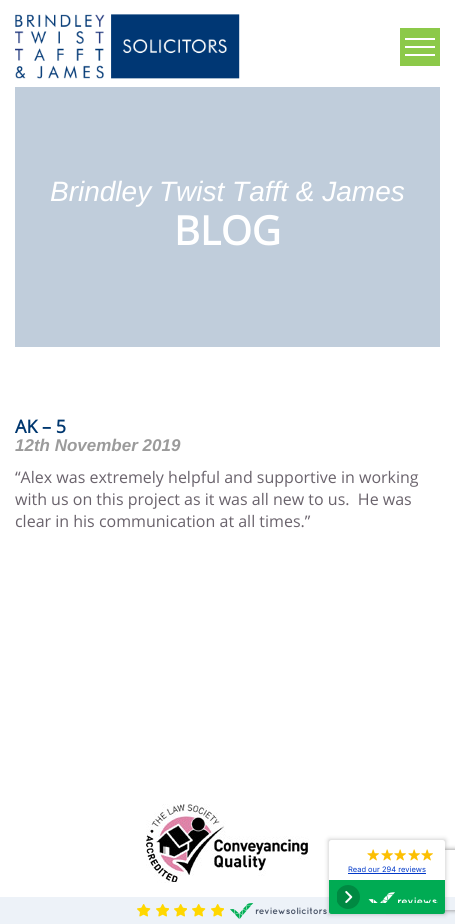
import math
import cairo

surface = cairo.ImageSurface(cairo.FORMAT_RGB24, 455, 924)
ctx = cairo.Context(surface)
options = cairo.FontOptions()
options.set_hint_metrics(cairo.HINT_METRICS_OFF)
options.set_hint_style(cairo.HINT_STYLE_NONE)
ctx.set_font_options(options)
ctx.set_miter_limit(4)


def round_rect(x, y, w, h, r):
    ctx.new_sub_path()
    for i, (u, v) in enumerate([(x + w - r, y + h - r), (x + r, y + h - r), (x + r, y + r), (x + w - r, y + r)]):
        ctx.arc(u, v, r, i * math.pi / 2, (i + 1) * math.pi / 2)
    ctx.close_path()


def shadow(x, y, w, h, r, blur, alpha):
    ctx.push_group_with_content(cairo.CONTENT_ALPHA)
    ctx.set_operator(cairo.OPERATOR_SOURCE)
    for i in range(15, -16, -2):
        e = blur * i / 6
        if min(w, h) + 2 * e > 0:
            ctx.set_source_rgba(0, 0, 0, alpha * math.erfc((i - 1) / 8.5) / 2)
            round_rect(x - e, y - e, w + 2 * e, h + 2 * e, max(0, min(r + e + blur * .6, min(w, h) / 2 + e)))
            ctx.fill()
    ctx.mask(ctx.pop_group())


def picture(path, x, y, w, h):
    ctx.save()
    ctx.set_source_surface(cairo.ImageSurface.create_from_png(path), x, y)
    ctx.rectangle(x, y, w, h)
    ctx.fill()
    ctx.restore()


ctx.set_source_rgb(1, 1, 1)
ctx.paint()
picture("img1.png", 15, 14, 225, 65)
ctx.set_source_rgb(0.549, 0.788, 0.286)
ctx.rectangle(400, 28, 40, 38)
ctx.fill()
ctx.set_source_rgb(1, 1, 1)
ctx.rectangle(405, 54, 30, 2)
ctx.fill()
ctx.rectangle(405, 38, 30, 2)
ctx.fill()
ctx.rectangle(405, 46, 30, 2)
ctx.fill()
ctx.set_source_rgb(0.753, 0.804, 0.859)
ctx.rectangle(15, 87, 425, 260)
ctx.fill()
ctx.select_font_face("Liberation Sans", cairo.FONT_SLANT_ITALIC)
ctx.set_font_size(28)
ctx.set_source_rgb(1, 1, 1)
ctx.move_to(50, 201)
ctx.show_text("Brindley Twist Tafft & James")
ctx.select_font_face("Open Sans", cairo.FONT_SLANT_NORMAL, cairo.FONT_WEIGHT_BOLD)
ctx.set_font_size(40)
ctx.move_to(174, 245)
ctx.show_text("BLOG")
ctx.set_font_size(18)
ctx.set_source_rgb(0, 0.216, 0.435)
ctx.move_to(15, 433)
ctx.show_text("AK – 5")
ctx.select_font_face("Liberation Sans", cairo.FONT_SLANT_ITALIC, cairo.FONT_WEIGHT_BOLD)
ctx.set_font_size(17)
ctx.set_source_rgb(0.608, 0.608, 0.608)
ctx.move_to(15, 451)
ctx.show_text("12th November 2019")
ctx.select_font_face("Open Sans")
ctx.set_font_size(16)
ctx.set_source_rgb(0.416, 0.388, 0.424)
ctx.move_to(15, 483)
ctx.show_text("“Alex was extremely helpful and supportive in working")
ctx.move_to(15, 505)
ctx.show_text("with us on this project as it was all new to us.  He was")
ctx.move_to(15, 527)
ctx.show_text("clear in his communication at all times.”")
picture("img2.png", 146, 804, 163, 79)
ctx.set_source_rgb(0.929, 0.949, 0.969)
ctx.rectangle(0, 897, 455, 27)
ctx.fill()
picture("img8.png", 230, 903, 97, 16)
ctx.set_source_rgb(0, 0, 0)
shadow(329, 840, 116, 74, 0, 2.5, 0.25)
ctx.save()
ctx.set_fill_rule(cairo.FILL_RULE_EVEN_ODD)
ctx.new_path()
ctx.move_to(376, 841)
ctx.line_to(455, 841)
ctx.line_to(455, 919)
ctx.line_to(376, 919)
ctx.close_path()
ctx.move_to(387, 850)
ctx.line_to(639, 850)
ctx.curve_to(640, 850, 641, 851, 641, 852)
ctx.line_to(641, 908)
ctx.curve_to(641, 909, 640, 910, 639, 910)
ctx.line_to(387, 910)
ctx.curve_to(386, 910, 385, 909, 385, 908)
ctx.line_to(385, 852)
ctx.curve_to(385, 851, 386, 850, 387, 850)
ctx.close_path()
ctx.clip()
ctx.set_source_rgb(0.502, 0.502, 0.502)
shadow(385, 850, 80, 60, 2, 2.5, 1)
ctx.restore()
ctx.set_source_rgb(1, 1, 1)
ctx.new_path()
ctx.move_to(331.5, 840)
ctx.line_to(442.5, 840)
ctx.curve_to(444, 840, 445, 841, 445, 842.5)
ctx.line_to(445, 880)
ctx.line_to(329, 880)
ctx.line_to(329, 842.5)
ctx.curve_to(329, 841, 330, 840, 331.5, 840)
ctx.close_path()
ctx.fill()
picture("img3.png", 367, 849, 12, 12)
picture("img3.png", 381, 849, 12, 12)
picture("img3.png", 394, 849, 12, 12)
picture("img3.png", 408, 849, 12, 12)
picture("img3.png", 421, 849, 12, 12)
ctx.select_font_face("Inter")
ctx.set_font_size(7.5)
ctx.set_source_rgb(0.008, 0.224, 0.784)
ctx.move_to(348, 872)
ctx.show_text("Read our 294 reviews")
ctx.rectangle(348, 873, 78, 1)
ctx.fill()
ctx.set_source_rgb(0, 0.671, 0.325)
ctx.new_path()
ctx.move_to(329, 880)
ctx.line_to(445, 880)
ctx.line_to(445, 911.5)
ctx.curve_to(445, 913, 444, 914, 442.5, 914)
ctx.line_to(331.5, 914)
ctx.curve_to(330, 914, 329, 913, 329, 911.5)
ctx.close_path()
ctx.fill()
picture("img4.png", 337, 885, 23, 24)
picture("img5.png", 368, 892, 70, 11)
picture("img6.png", 137, 904, 14, 13)
picture("img7.png", 156, 904, 13, 13)
picture("img7.png", 174, 904, 13, 13)
picture("img6.png", 192, 904, 14, 13)
picture("img7.png", 211, 904, 13, 13)
surface.write_to_png("page.png")
